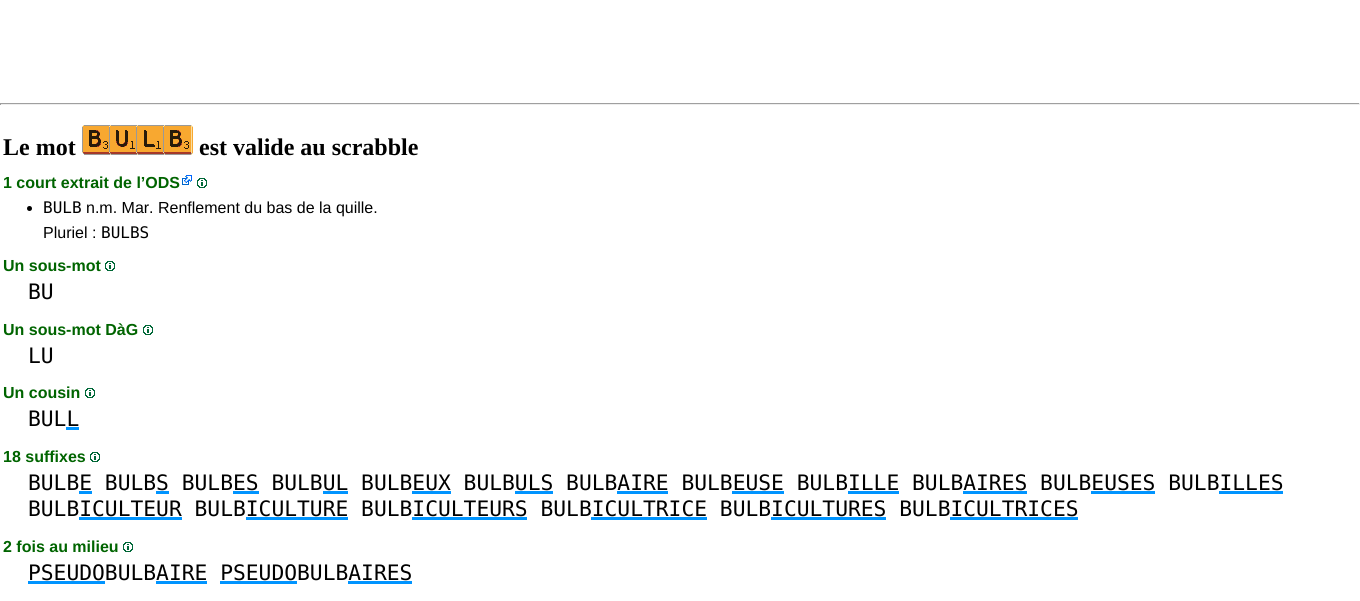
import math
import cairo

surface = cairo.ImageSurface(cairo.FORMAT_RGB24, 1360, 601)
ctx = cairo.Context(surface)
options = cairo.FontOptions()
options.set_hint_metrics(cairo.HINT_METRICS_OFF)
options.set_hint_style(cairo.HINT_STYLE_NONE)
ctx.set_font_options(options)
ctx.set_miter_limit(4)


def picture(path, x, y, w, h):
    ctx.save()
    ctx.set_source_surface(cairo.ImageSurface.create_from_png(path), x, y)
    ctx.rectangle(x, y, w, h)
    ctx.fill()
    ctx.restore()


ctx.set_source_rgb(1, 1, 1)
ctx.paint()
ctx.set_source_rgb(0.624, 0.624, 0.624)
ctx.rectangle(0, 103, 1360, 1)
ctx.fill()
ctx.set_source_rgb(0.933, 0.933, 0.933)
ctx.rectangle(1359, 103, 1, 2)
ctx.fill()
ctx.rectangle(0, 104, 1360, 1)
ctx.fill()
ctx.set_source_rgb(0.624, 0.624, 0.624)
ctx.rectangle(0, 103, 1, 2)
ctx.fill()
ctx.select_font_face("Liberation Serif", cairo.FONT_SLANT_NORMAL, cairo.FONT_WEIGHT_BOLD)
ctx.set_font_size(24)
ctx.set_source_rgb(0, 0, 0)
ctx.move_to(3, 155)
ctx.show_text("Le mot")
picture("img1.png", 82, 125, 111, 30)
ctx.move_to(199, 155)
ctx.show_text("est valide au scrabble")
ctx.select_font_face("Liberation Sans", cairo.FONT_SLANT_NORMAL, cairo.FONT_WEIGHT_BOLD)
ctx.set_font_size(16)
ctx.set_source_rgb(0, 0.392, 0)
ctx.move_to(3, 188)
ctx.show_text("1 court extrait de l’ODS")
picture("img2.png", 182, 175, 10, 10)
picture("img3.png", 197, 178, 10, 10)
ctx.set_source_rgb(0, 0, 0)
ctx.arc(29.5, 208.5, 2.5, 0, 2 * math.pi)
ctx.fill()
ctx.select_font_face("DejaVu Sans Mono")
ctx.move_to(43, 213)
ctx.show_text("BULB")
ctx.select_font_face("Liberation Sans")
ctx.move_to(86, 213)
ctx.show_text("n.m. Mar. Renflement du bas de la quille.")
ctx.move_to(43, 238)
ctx.show_text("Pluriel :")
ctx.select_font_face("DejaVu Sans Mono")
ctx.move_to(101, 238)
ctx.show_text("BULBS")
ctx.select_font_face("Liberation Sans", cairo.FONT_SLANT_NORMAL, cairo.FONT_WEIGHT_BOLD)
ctx.set_source_rgb(0, 0.392, 0)
ctx.move_to(3, 271)
ctx.show_text("Un sous-mot")
picture("img3.png", 105, 261, 10, 10)
ctx.select_font_face("DejaVu Sans Mono")
ctx.set_font_size(21.28)
ctx.set_source_rgb(0, 0, 0)
ctx.move_to(28, 299)
ctx.show_text("BU")
ctx.select_font_face("Liberation Sans", cairo.FONT_SLANT_NORMAL, cairo.FONT_WEIGHT_BOLD)
ctx.set_font_size(16)
ctx.set_source_rgb(0, 0.392, 0)
ctx.move_to(3, 335)
ctx.show_text("Un sous-mot DàG")
picture("img3.png", 143, 325, 10, 10)
ctx.select_font_face("DejaVu Sans Mono")
ctx.set_font_size(21.28)
ctx.set_source_rgb(0, 0, 0)
ctx.move_to(28, 363)
ctx.show_text("LU")
ctx.select_font_face("Liberation Sans", cairo.FONT_SLANT_NORMAL, cairo.FONT_WEIGHT_BOLD)
ctx.set_font_size(16)
ctx.set_source_rgb(0, 0.392, 0)
ctx.move_to(3, 398)
ctx.show_text("Un cousin")
picture("img3.png", 85, 388, 10, 10)
ctx.select_font_face("DejaVu Sans Mono")
ctx.set_font_size(21.28)
ctx.set_source_rgb(0, 0, 0)
ctx.move_to(28, 426)
ctx.show_text("BULL")
ctx.set_source_rgb(0, 0.58, 1)
ctx.rectangle(66, 427, 13, 3)
ctx.fill()
ctx.select_font_face("Liberation Sans", cairo.FONT_SLANT_NORMAL, cairo.FONT_WEIGHT_BOLD)
ctx.set_font_size(16)
ctx.set_source_rgb(0, 0.392, 0)
ctx.move_to(3, 462)
ctx.show_text("18 suffixes")
picture("img3.png", 90, 452, 10, 10)
ctx.select_font_face("DejaVu Sans Mono")
ctx.set_font_size(21.28)
ctx.set_source_rgb(0, 0, 0)
ctx.move_to(28, 490)
ctx.show_text("BULBE BULBS BULBES BULBUL BULBEUX BULBULS BULBAIRE BULBEUSE BULBILLE BULBAIRES BULBEUSES BULBILLES")
ctx.set_source_rgb(0, 0.58, 1)
ctx.rectangle(79, 491, 13, 3)
ctx.fill()
ctx.rectangle(156, 491, 13, 3)
ctx.fill()
ctx.rectangle(233, 491, 26, 3)
ctx.fill()
ctx.rectangle(323, 491, 25, 3)
ctx.fill()
ctx.rectangle(412, 491, 39, 3)
ctx.fill()
ctx.rectangle(515, 491, 38, 3)
ctx.fill()
ctx.rectangle(617, 491, 51, 3)
ctx.fill()
ctx.rectangle(732, 491, 52, 3)
ctx.fill()
ctx.rectangle(848, 491, 51, 3)
ctx.fill()
ctx.rectangle(963, 491, 64, 3)
ctx.fill()
ctx.rectangle(1091, 491, 64, 3)
ctx.fill()
ctx.rectangle(1219, 491, 64, 3)
ctx.fill()
ctx.set_source_rgb(0, 0, 0)
ctx.move_to(28, 516)
ctx.show_text("BULBICULTEUR BULBICULTURE BULBICULTEURS BULBICULTRICE BULBICULTURES BULBICULTRICES")
ctx.set_source_rgb(0, 0.58, 1)
ctx.rectangle(79, 517, 103, 3)
ctx.fill()
ctx.rectangle(246, 517, 102, 3)
ctx.fill()
ctx.rectangle(412, 517, 115, 3)
ctx.fill()
ctx.rectangle(591, 517, 116, 3)
ctx.fill()
ctx.rectangle(771, 517, 115, 3)
ctx.fill()
ctx.rectangle(950, 517, 128, 3)
ctx.fill()
ctx.select_font_face("Liberation Sans", cairo.FONT_SLANT_NORMAL, cairo.FONT_WEIGHT_BOLD)
ctx.set_font_size(16)
ctx.set_source_rgb(0, 0.392, 0)
ctx.move_to(3, 552)
ctx.show_text("2 fois au milieu")
picture("img3.png", 123, 542, 10, 10)
ctx.select_font_face("DejaVu Sans Mono")
ctx.set_font_size(21.28)
ctx.set_source_rgb(0, 0, 0)
ctx.move_to(28, 580)
ctx.show_text("PSEUDOBULBAIRE PSEUDOBULBAIRES")
ctx.set_source_rgb(0, 0.58, 1)
ctx.rectangle(28, 581, 77, 3)
ctx.fill()
ctx.rectangle(156, 581, 51, 3)
ctx.fill()
ctx.rectangle(220, 581, 77, 3)
ctx.fill()
ctx.rectangle(348, 581, 64, 3)
ctx.fill()
surface.write_to_png("page.png")
